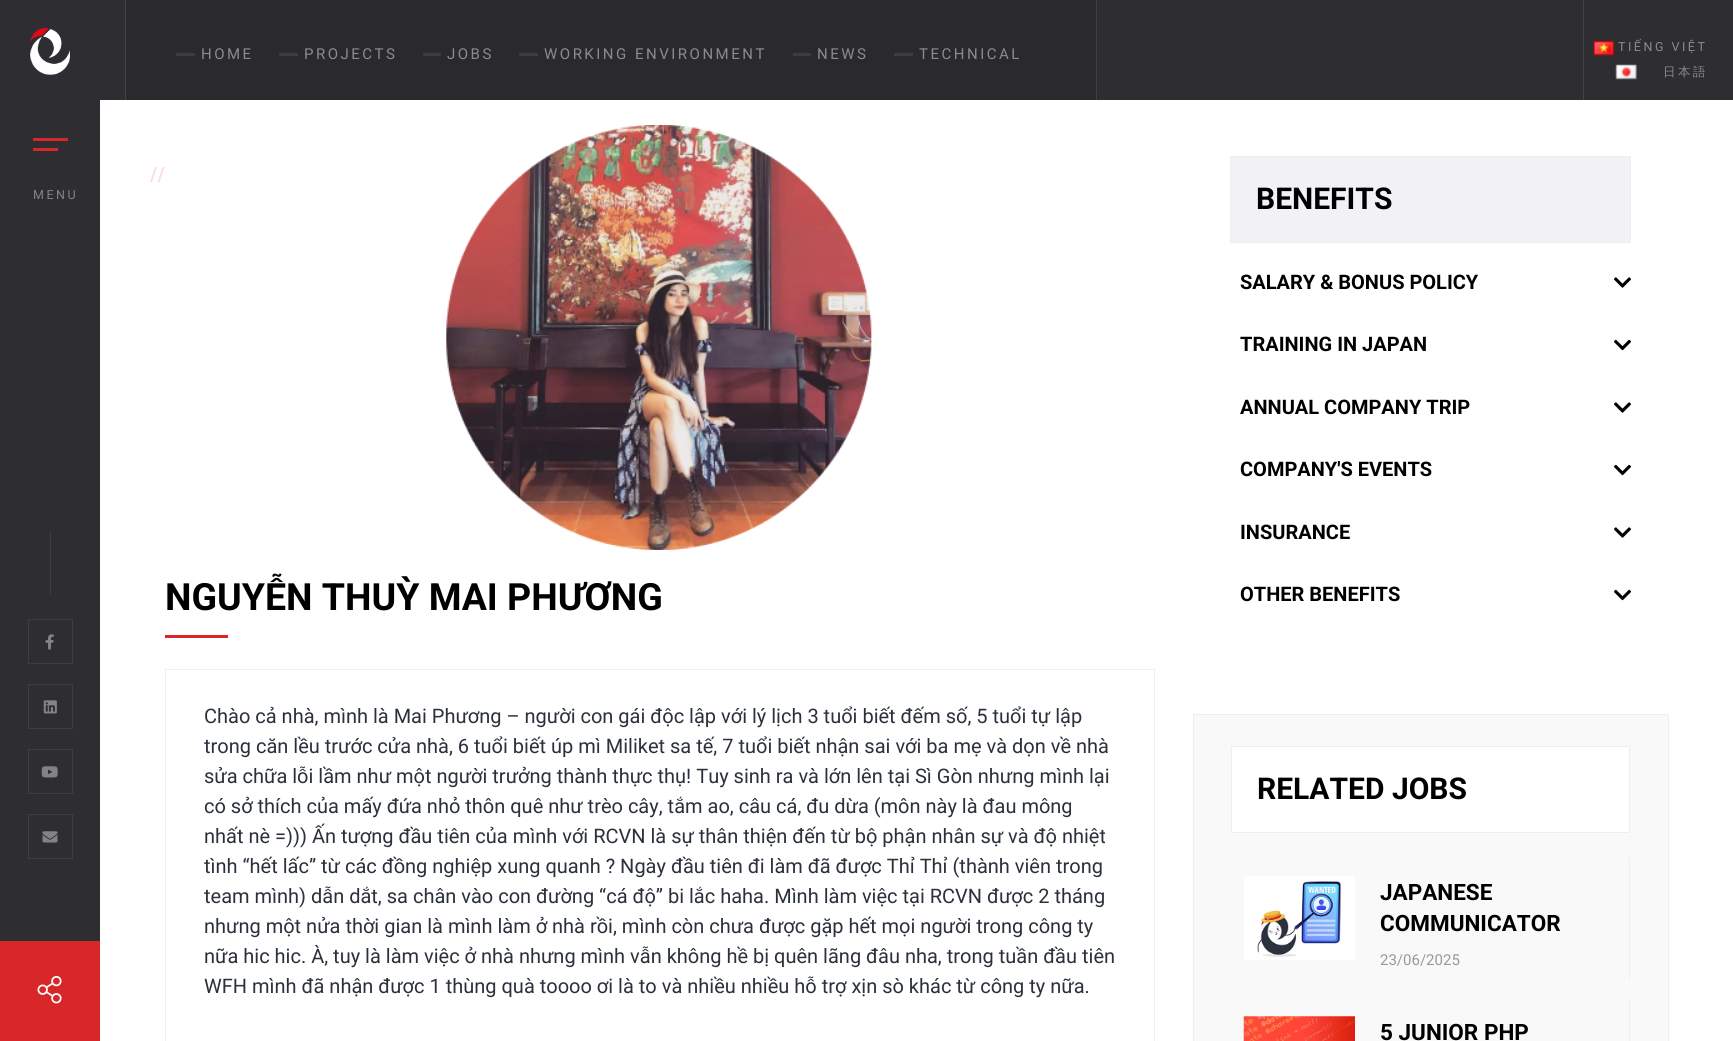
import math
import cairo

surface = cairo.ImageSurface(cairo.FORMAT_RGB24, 1733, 1041)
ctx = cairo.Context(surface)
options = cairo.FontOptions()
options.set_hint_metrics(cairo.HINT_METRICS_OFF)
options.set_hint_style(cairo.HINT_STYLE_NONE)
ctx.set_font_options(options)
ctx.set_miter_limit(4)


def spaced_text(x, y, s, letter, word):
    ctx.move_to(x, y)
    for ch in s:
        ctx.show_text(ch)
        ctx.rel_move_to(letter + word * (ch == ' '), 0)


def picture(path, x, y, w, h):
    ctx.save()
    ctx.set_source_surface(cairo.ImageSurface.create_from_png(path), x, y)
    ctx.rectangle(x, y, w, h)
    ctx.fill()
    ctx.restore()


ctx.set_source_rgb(0.176, 0.176, 0.196)
ctx.paint()
picture("img1.png", 30, 27, 40, 48)
ctx.set_source_rgb(0.847, 0.153, 0.157)
ctx.rectangle(33, 138, 35, 3)
ctx.fill()
ctx.rectangle(33, 148, 25, 3)
ctx.fill()
ctx.select_font_face("Roboto")
ctx.set_font_size(12.5)
ctx.set_source_rgb(0.514, 0.514, 0.525)
spaced_text(33, 199, "MENU", 2.5, 0)
ctx.set_source_rgb(0.243, 0.243, 0.259)
ctx.rectangle(50, 531, 1, 63)
ctx.fill()
ctx.rectangle(28.5, 619.5, 44, 44)
ctx.set_line_width(1)
ctx.stroke()
picture("img2.png", 45, 634, 9, 16)
ctx.rectangle(28.5, 684.5, 44, 44)
ctx.stroke()
picture("img3.png", 43, 700, 14, 14)
ctx.rectangle(28.5, 749.5, 44, 44)
ctx.stroke()
picture("img4.png", 41, 766, 17, 12)
ctx.rectangle(28.5, 814.5, 44, 44)
ctx.stroke()
picture("img5.png", 42, 831, 16, 12)
ctx.set_source_rgb(0.847, 0.153, 0.157)
ctx.rectangle(0, 941, 100, 100)
ctx.fill()
picture("img6.png", 37, 975, 25, 29)
ctx.set_source_rgb(0.267, 0.267, 0.286)
ctx.rectangle(125, 0, 1, 100)
ctx.fill()
ctx.set_source_rgb(0.165, 0.165, 0.18)
ctx.rectangle(126, 0, 972, 100)
ctx.fill()
ctx.set_source_rgb(0.255, 0.255, 0.271)
ctx.rectangle(1096, 0, 1, 100)
ctx.fill()
ctx.set_source_rgb(0.239, 0.239, 0.255)
ctx.rectangle(176, 53, 19, 3)
ctx.fill()
ctx.set_font_size(15)
ctx.set_source_rgb(0.545, 0.545, 0.545)
spaced_text(201, 59, "HOME", 2.5, 0)
ctx.set_source_rgb(0.239, 0.239, 0.255)
ctx.rectangle(279, 53, 19, 3)
ctx.fill()
ctx.set_source_rgb(0.545, 0.545, 0.545)
spaced_text(304, 59, "PROJECTS", 2.5, 0)
ctx.set_source_rgb(0.239, 0.239, 0.255)
ctx.rectangle(423, 53, 18, 3)
ctx.fill()
ctx.set_source_rgb(0.545, 0.545, 0.545)
spaced_text(447, 59, "JOBS", 2.5, 0)
ctx.set_source_rgb(0.239, 0.239, 0.255)
ctx.rectangle(519, 53, 19, 3)
ctx.fill()
ctx.set_source_rgb(0.545, 0.545, 0.545)
spaced_text(544, 59, "WORKING ENVIRONMENT", 2.5, 0)
ctx.set_source_rgb(0.239, 0.239, 0.255)
ctx.rectangle(793, 53, 18, 3)
ctx.fill()
ctx.set_source_rgb(0.545, 0.545, 0.545)
spaced_text(817, 59, "NEWS", 2.5, 0)
ctx.set_source_rgb(0.239, 0.239, 0.255)
ctx.rectangle(894, 53, 19, 3)
ctx.fill()
ctx.set_source_rgb(0.545, 0.545, 0.545)
spaced_text(919, 59, "TECHNICAL", 2.5, 0)
ctx.set_source_rgb(0.267, 0.267, 0.286)
ctx.rectangle(1583, 0, 1, 100)
ctx.fill()
picture("img7.png", 1593, 41, 21, 15)
ctx.set_font_size(12.5)
ctx.set_source_rgb(0.545, 0.545, 0.545)
spaced_text(1618, 51, "TIẾNG VIỆT", 2.5, 0)
picture("img8.png", 1615, 64, 22, 16)
ctx.select_font_face("WenQuanYi Zen Hei Medium")
spaced_text(1663, 76, "日本語", 2.5, 0)
ctx.set_source_rgb(1, 1, 1)
ctx.rectangle(100, 100, 1633, 941)
ctx.fill()
ctx.select_font_face("Roboto", cairo.FONT_SLANT_NORMAL, cairo.FONT_WEIGHT_BOLD)
ctx.set_font_size(20)
ctx.set_source_rgb(0.976, 0.875, 0.875)
ctx.move_to(150, 181)
ctx.show_text("//")
picture("img9.png", 446, 125, 426, 425)
ctx.set_font_size(37.5)
ctx.set_source_rgb(0, 0, 0)
ctx.move_to(165, 610)
ctx.show_text("NGUYỄN THUỲ MAI PHƯƠNG")
ctx.set_source_rgb(0.847, 0.153, 0.157)
ctx.rectangle(165, 635, 63, 3)
ctx.fill()
ctx.rectangle(165.5, 669.5, 989, 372)
ctx.set_source_rgb(0.933, 0.933, 0.933)
ctx.stroke()
ctx.select_font_face("Roboto")
ctx.set_font_size(20)
ctx.set_source_rgb(0.165, 0.192, 0.235)
ctx.move_to(204, 723)
ctx.show_text("Chào cả nhà, mình là Mai Phương – người con gái độc lập với lý lịch 3 tuổi biết đếm số, 5 tuổi tự lập")
ctx.move_to(204, 753)
ctx.show_text("trong căn lều trước cửa nhà, 6 tuổi biết úp mì Miliket sa tế, 7 tuổi biết nhận sai với ba mẹ và dọn về nhà")
ctx.move_to(204, 783)
ctx.show_text("sửa chữa lỗi lầm như một người trưởng thành thực thụ! Tuy sinh ra và lớn lên tại Sì Gòn nhưng mình lại")
ctx.move_to(204, 813)
ctx.show_text("có sở thích của mấy đứa nhỏ thôn quê như trèo cây, tắm ao, câu cá, đu dừa (môn này là đau mông")
ctx.move_to(204, 843)
ctx.show_text("nhất nè =))) Ấn tượng đầu tiên của mình với RCVN là sự thân thiện đến từ bộ phận nhân sự và độ nhiệt")
ctx.move_to(204, 873)
ctx.show_text("tình “hết lấc” từ các đồng nghiệp xung quanh ? Ngày đầu tiên đi làm đã được Thỉ Thỉ (thành viên trong")
ctx.move_to(204, 903)
ctx.show_text("team mình) dẫn dắt, sa chân vào con đường “cá độ” bi lắc haha. Mình làm việc tại RCVN được 2 tháng")
ctx.move_to(204, 933)
ctx.show_text("nhưng một nửa thời gian là mình làm ở nhà rồi, mình còn chưa được gặp hết mọi người trong công ty")
ctx.move_to(204, 963)
ctx.show_text("nữa hic hic. À, tuy là làm việc ở nhà nhưng mình vẫn không hề bị quên lãng đâu nha, trong tuần đầu tiên")
ctx.move_to(204, 993)
ctx.show_text("WFH mình đã nhận được 1 thùng quà toooo ơi là to và nhiều nhiều hỗ trợ xịn sò khác từ công ty nữa.")
ctx.set_source_rgb(0.949, 0.949, 0.961)
ctx.rectangle(1230.5, 156.5, 400, 86)
ctx.fill_preserve()
ctx.set_source_rgb(0.933, 0.933, 0.933)
ctx.stroke()
ctx.select_font_face("Roboto", cairo.FONT_SLANT_NORMAL, cairo.FONT_WEIGHT_BOLD)
ctx.set_font_size(30)
ctx.set_source_rgb(0, 0, 0)
ctx.move_to(1256, 209)
ctx.show_text("BENEFITS")
ctx.set_font_size(20)
ctx.move_to(1240, 289)
ctx.show_text("SALARY & BONUS POLICY")
picture("img10.png", 1614, 277, 17, 11)
ctx.move_to(1240, 351)
ctx.show_text("TRAINING IN JAPAN")
picture("img11.png", 1614, 339, 17, 12)
ctx.move_to(1240, 414)
ctx.show_text("ANNUAL COMPANY TRIP")
picture("img10.png", 1614, 402, 17, 11)
ctx.move_to(1240, 476)
ctx.show_text("COMPANY'S EVENTS")
picture("img11.png", 1614, 464, 17, 12)
ctx.move_to(1240, 539)
ctx.show_text("INSURANCE")
picture("img10.png", 1614, 527, 17, 11)
ctx.move_to(1240, 601)
ctx.show_text("OTHER BENEFITS")
picture("img11.png", 1614, 589, 17, 12)
ctx.set_source_rgb(0.976, 0.976, 0.976)
ctx.rectangle(1193.5, 714.5, 475, 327)
ctx.fill_preserve()
ctx.set_source_rgb(0.933, 0.933, 0.933)
ctx.stroke()
ctx.set_source_rgb(1, 1, 1)
ctx.rectangle(1231.5, 746.5, 398, 86)
ctx.fill_preserve()
ctx.set_source_rgb(0.933, 0.933, 0.933)
ctx.stroke()
ctx.set_font_size(30)
ctx.set_source_rgb(0, 0, 0)
ctx.move_to(1257, 799)
ctx.show_text("RELATED JOBS")
ctx.set_source_rgb(0.933, 0.933, 0.933)
ctx.rectangle(1629, 858, 1, 121)
ctx.fill()
picture("img12.png", 1244, 876, 111, 84)
ctx.set_font_size(22.5)
ctx.set_source_rgb(0, 0, 0)
ctx.move_to(1380, 900)
ctx.show_text("JAPANESE")
ctx.move_to(1380, 931)
ctx.show_text("COMMUNICATOR")
ctx.select_font_face("Roboto")
ctx.set_font_size(15)
ctx.set_source_rgb(0.6, 0.6, 0.6)
ctx.move_to(1380, 965)
ctx.show_text("23/06/2025")
ctx.set_source_rgb(0.933, 0.933, 0.933)
ctx.rectangle(1629, 998, 1, 43)
ctx.fill()
picture("img13.png", 1243, 1016, 112, 25)
ctx.select_font_face("Roboto", cairo.FONT_SLANT_NORMAL, cairo.FONT_WEIGHT_BOLD)
ctx.set_font_size(22.5)
ctx.set_source_rgb(0, 0, 0)
ctx.move_to(1380, 1040)
ctx.show_text("5 JUNIOR PHP")
surface.write_to_png("page.png")
